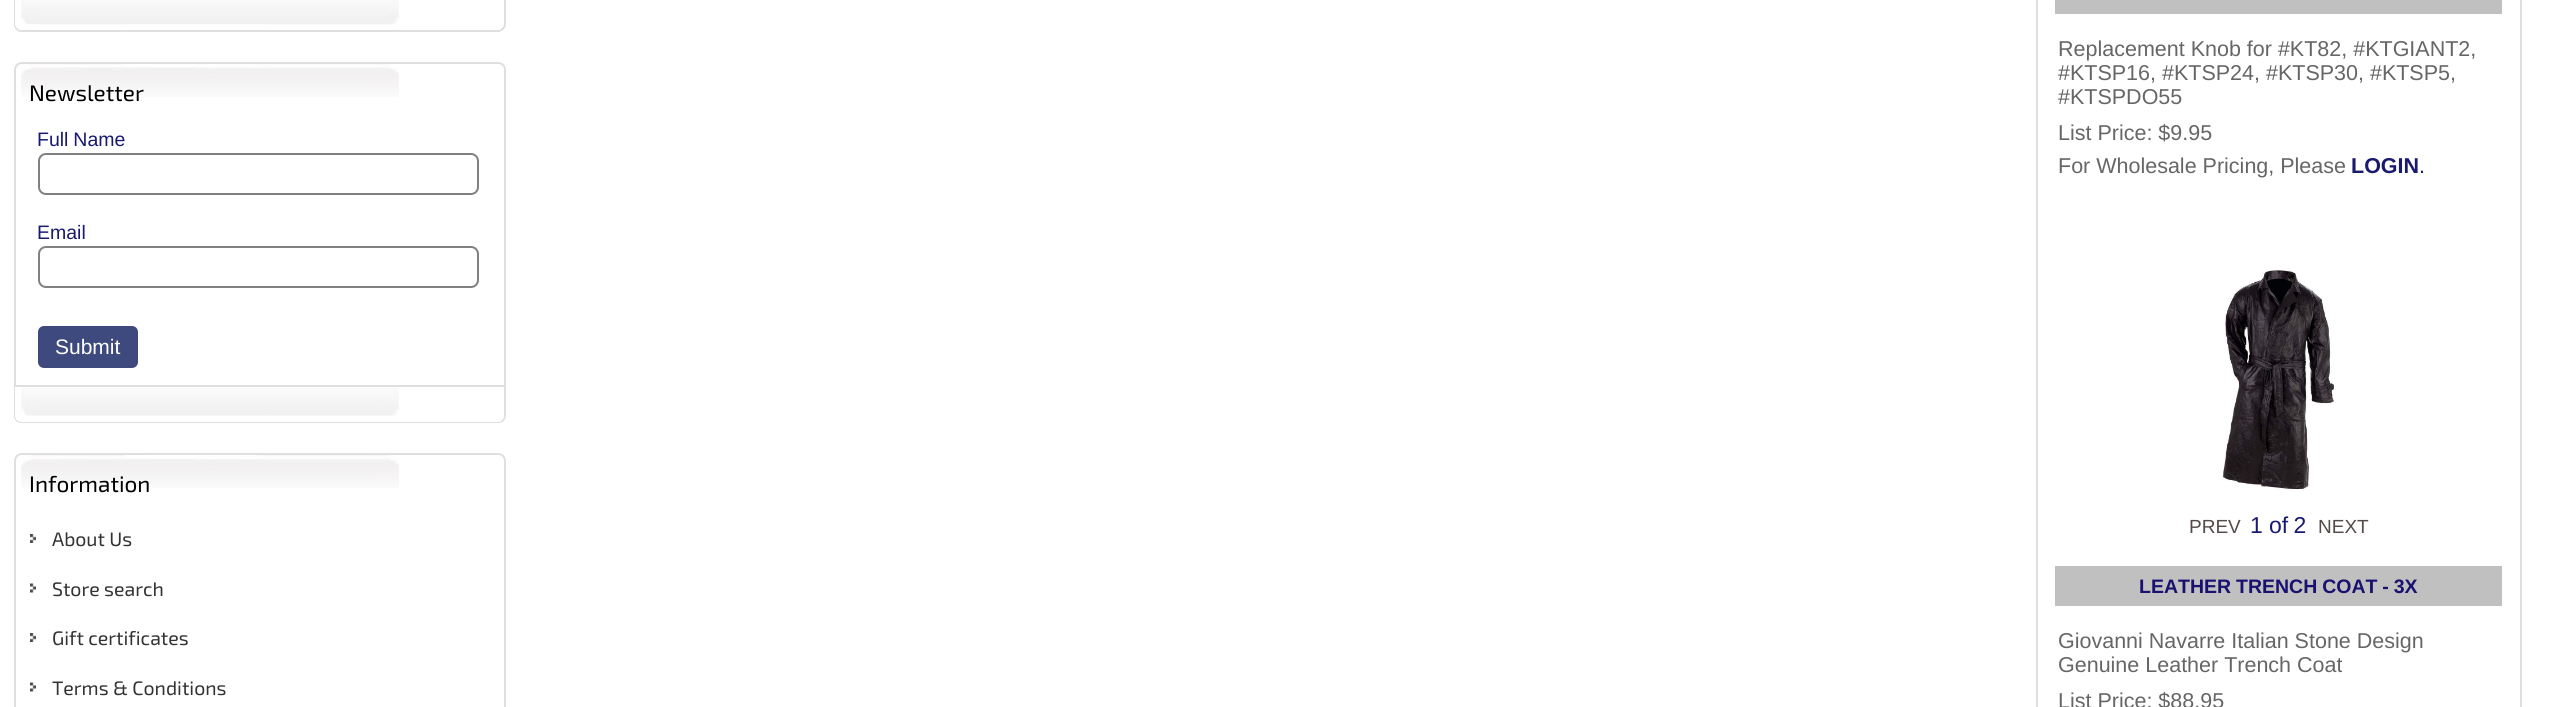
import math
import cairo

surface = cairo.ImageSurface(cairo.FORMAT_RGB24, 2554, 707)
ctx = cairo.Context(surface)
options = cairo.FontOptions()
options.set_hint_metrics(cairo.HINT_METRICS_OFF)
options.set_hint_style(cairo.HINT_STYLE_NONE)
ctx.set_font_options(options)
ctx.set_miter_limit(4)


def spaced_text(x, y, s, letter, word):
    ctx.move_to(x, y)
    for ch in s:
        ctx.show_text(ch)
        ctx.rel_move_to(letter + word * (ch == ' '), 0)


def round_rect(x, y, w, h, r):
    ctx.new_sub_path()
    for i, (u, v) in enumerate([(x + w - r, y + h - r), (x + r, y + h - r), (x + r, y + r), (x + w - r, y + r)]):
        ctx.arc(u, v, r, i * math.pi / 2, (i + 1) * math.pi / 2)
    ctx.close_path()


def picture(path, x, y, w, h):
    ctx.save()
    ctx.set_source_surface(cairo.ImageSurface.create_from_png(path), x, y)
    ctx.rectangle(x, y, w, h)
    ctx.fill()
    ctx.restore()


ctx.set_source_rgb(1, 1, 1)
ctx.paint()
picture("img1.png", 21, 0, 378, 25)
ctx.set_source_rgb(0.875, 0.875, 0.875)
ctx.set_fill_rule(cairo.FILL_RULE_EVEN_ODD)
ctx.new_path()
ctx.move_to(14, -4)
ctx.line_to(506, -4)
ctx.line_to(506, 24)
ctx.curve_to(506, 28, 502, 32, 498, 32)
ctx.line_to(21, 32)
ctx.curve_to(17, 32, 14, 28, 14, 24)
ctx.close_path()
ctx.move_to(15, -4)
ctx.line_to(504, -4)
ctx.line_to(504, 24)
ctx.curve_to(504, 27, 501, 30, 498, 30)
ctx.line_to(21, 30)
ctx.curve_to(18, 30, 15, 27, 15, 24)
ctx.close_path()
ctx.fill()
picture("img2.png", 21, 64, 378, 33)
ctx.new_path()
ctx.move_to(22, 63)
ctx.line_to(498, 63)
ctx.curve_to(502, 63, 505, 66, 505, 70)
ctx.line_to(505, 386)
ctx.line_to(15, 386)
ctx.line_to(15, 70)
ctx.curve_to(15, 66, 18, 63, 22, 63)
ctx.close_path()
ctx.stroke()
ctx.select_font_face("Exo 2")
ctx.set_font_size(22.5)
ctx.set_source_rgb(0, 0, 0)
ctx.move_to(29, 101)
ctx.show_text("Newsletter")
ctx.select_font_face("Liberation Sans")
ctx.set_font_size(19.5)
ctx.set_source_rgb(0.098, 0.098, 0.439)
spaced_text(37, 146, "Full Name", 0, -0.5)
round_rect(39, 154, 439, 40, 7)
ctx.set_source_rgb(0.502, 0.502, 0.502)
ctx.stroke()
ctx.set_source_rgb(0.098, 0.098, 0.439)
ctx.move_to(37, 239)
ctx.show_text("Email")
round_rect(39, 247, 439, 40, 7)
ctx.set_source_rgb(0.502, 0.502, 0.502)
ctx.stroke()
ctx.set_source_rgb(0.243, 0.29, 0.494)
round_rect(38, 326, 100, 42, 6)
ctx.fill()
ctx.set_font_size(21)
ctx.set_source_rgb(1, 1, 1)
ctx.move_to(55, 354)
ctx.show_text("Submit")
picture("img3.png", 21, 388, 378, 28)
ctx.set_source_rgb(0.875, 0.875, 0.875)
ctx.new_path()
ctx.move_to(14, 387)
ctx.line_to(506, 387)
ctx.line_to(506, 416)
ctx.curve_to(506, 420, 502, 423, 498, 423)
ctx.line_to(21, 423)
ctx.curve_to(17, 423, 14, 420, 14, 416)
ctx.close_path()
ctx.move_to(15, 387)
ctx.line_to(504, 387)
ctx.line_to(504, 416)
ctx.curve_to(504, 419, 501, 422, 498, 422)
ctx.line_to(21, 422)
ctx.curve_to(18, 422, 15, 419, 15, 416)
ctx.close_path()
ctx.fill()
picture("img4.png", 21, 455, 378, 33)
ctx.new_path()
ctx.move_to(22, 454)
ctx.line_to(498, 454)
ctx.curve_to(502, 454, 505, 457, 505, 461)
ctx.line_to(505, 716)
ctx.line_to(15, 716)
ctx.line_to(15, 461)
ctx.curve_to(15, 457, 18, 454, 22, 454)
ctx.close_path()
ctx.stroke()
ctx.select_font_face("Exo 2")
ctx.set_font_size(22.5)
ctx.set_source_rgb(0, 0, 0)
ctx.move_to(29, 492)
ctx.show_text("Information")
picture("img5.png", 30, 534, 6, 9)
ctx.set_font_size(19.5)
ctx.set_source_rgb(0.2, 0.2, 0.2)
ctx.move_to(52, 546)
ctx.show_text("About Us")
picture("img6.png", 30, 583, 6, 10)
ctx.move_to(52, 596)
ctx.show_text("Store search")
picture("img5.png", 30, 633, 6, 9)
ctx.move_to(52, 645)
ctx.show_text("Gift certificates")
picture("img6.png", 30, 682, 6, 10)
ctx.move_to(52, 695)
ctx.show_text("Terms & Conditions")
ctx.rectangle(2037, -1, 484, 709)
ctx.set_source_rgb(0.875, 0.875, 0.875)
ctx.stroke()
ctx.set_source_rgb(0.753, 0.753, 0.753)
ctx.rectangle(2055, 0, 447, 14)
ctx.fill()
ctx.select_font_face("Liberation Sans")
ctx.set_font_size(21.5)
ctx.set_source_rgb(0.4, 0.4, 0.4)
ctx.move_to(2058, 56)
ctx.show_text("Replacement Knob for #KT82, #KTGIANT2,")
ctx.move_to(2058, 80)
ctx.show_text("#KTSP16, #KTSP24, #KTSP30, #KTSP5,")
ctx.move_to(2058, 104)
ctx.show_text("#KTSPDO55")
ctx.move_to(2058, 140)
ctx.show_text("List Price: $9.95")
ctx.move_to(2058, 173)
ctx.show_text("For Wholesale Pricing, Please")
ctx.select_font_face("Liberation Sans", cairo.FONT_SLANT_NORMAL, cairo.FONT_WEIGHT_BOLD)
ctx.set_source_rgb(0.098, 0.098, 0.439)
ctx.move_to(2351, 173)
ctx.show_text("LOGIN")
ctx.select_font_face("Liberation Sans")
ctx.move_to(2419, 173)
ctx.show_text(".")
picture("img7.png", 2222, 270, 113, 220)
ctx.set_font_size(19)
ctx.set_source_rgb(0.329, 0.29, 0.29)
ctx.move_to(2189, 533)
ctx.show_text("PREV")
ctx.set_font_size(23)
ctx.set_source_rgb(0.098, 0.098, 0.439)
ctx.move_to(2250, 533)
ctx.show_text("1")
spaced_text(2269, 533, "of 2", 0, -1)
ctx.set_font_size(19)
ctx.set_source_rgb(0.329, 0.29, 0.29)
ctx.move_to(2318, 533)
ctx.show_text("NEXT")
ctx.set_source_rgb(0.753, 0.753, 0.753)
ctx.rectangle(2055, 566, 447, 40)
ctx.fill()
ctx.select_font_face("Liberation Sans", cairo.FONT_SLANT_NORMAL, cairo.FONT_WEIGHT_BOLD)
ctx.set_font_size(19.5)
ctx.set_source_rgb(0.098, 0.067, 0.439)
spaced_text(2139, 593, "LEATHER TRENCH COAT - 3X", 0, -0.5)
ctx.select_font_face("Liberation Sans")
ctx.set_font_size(21.5)
ctx.set_source_rgb(0.4, 0.4, 0.4)
ctx.move_to(2058, 648)
ctx.show_text("Giovanni Navarre Italian Stone Design")
ctx.move_to(2058, 672)
ctx.show_text("Genuine Leather Trench Coat")
ctx.move_to(2058, 708)
ctx.show_text("List Price: $88.95")
surface.write_to_png("page.png")
